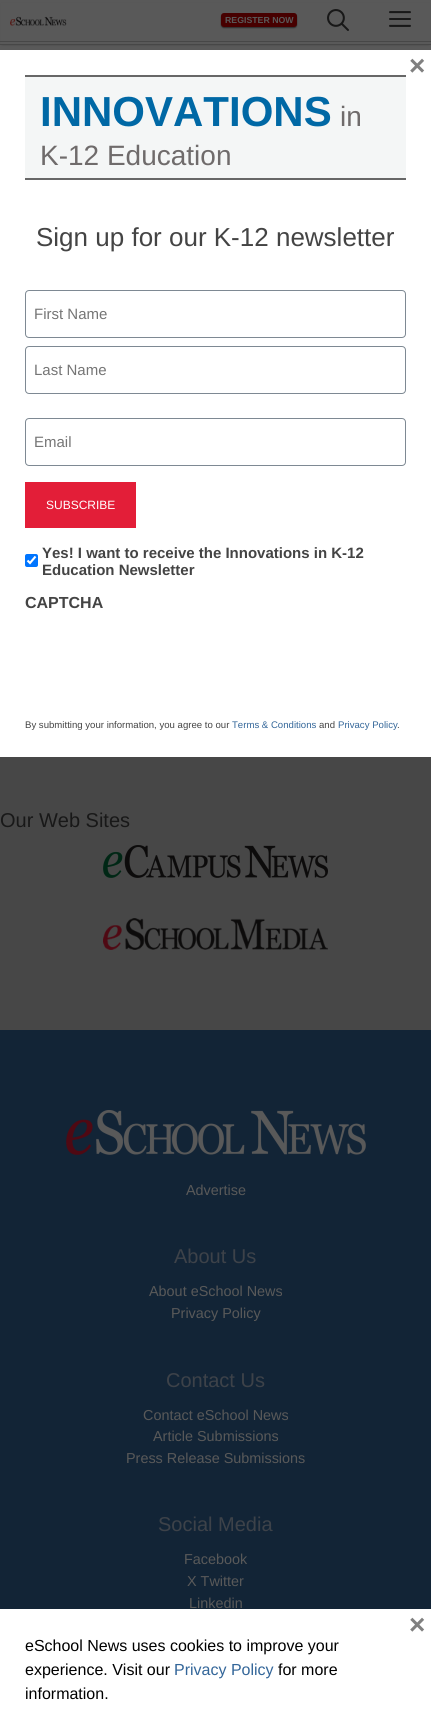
import math
import cairo

surface = cairo.ImageSurface(cairo.FORMAT_RGB24, 431, 1731)
ctx = cairo.Context(surface)
options = cairo.FontOptions()
options.set_hint_metrics(cairo.HINT_METRICS_OFF)
options.set_hint_style(cairo.HINT_STYLE_NONE)
ctx.set_font_options(options)
ctx.set_miter_limit(4)


def round_rect(x, y, w, h, r):
    ctx.new_sub_path()
    for i, (u, v) in enumerate([(x + w - r, y + h - r), (x + r, y + h - r), (x + r, y + r), (x + w - r, y + r)]):
        ctx.arc(u, v, r, i * math.pi / 2, (i + 1) * math.pi / 2)
    ctx.close_path()


def shadow(x, y, w, h, r, blur, alpha):
    ctx.push_group_with_content(cairo.CONTENT_ALPHA)
    ctx.set_operator(cairo.OPERATOR_SOURCE)
    for i in range(15, -16, -2):
        e = blur * i / 6
        if min(w, h) + 2 * e > 0:
            ctx.set_source_rgba(0, 0, 0, alpha * math.erfc((i - 1) / 8.5) / 2)
            round_rect(x - e, y - e, w + 2 * e, h + 2 * e, max(0, min(r + e + blur * .6, min(w, h) / 2 + e)))
            ctx.fill()
    ctx.mask(ctx.pop_group())


def picture(path, x, y, w, h):
    ctx.save()
    ctx.set_source_surface(cairo.ImageSurface.create_from_png(path), x, y)
    ctx.rectangle(x, y, w, h)
    ctx.fill()
    ctx.restore()


ctx.set_source_rgb(0.349, 0.349, 0.349)
ctx.paint()
ctx.set_source_rgb(0, 0, 0)
shadow(2, 4, 427, 41, 0, 1, 0.2)
ctx.set_source_rgb(0.349, 0.349, 0.349)
ctx.rectangle(1, 3, 429, 41)
ctx.fill()
ctx.set_source_rgb(0.278, 0.278, 0.278)
ctx.rectangle(0, 41, 431, 1)
ctx.fill()
ctx.rectangle(0, 44, 431, 1)
ctx.fill()
picture("img1.png", 10, 16, 57, 10)
ctx.set_source_rgb(0.188, 0.188, 0.188)
shadow(221, 14, 76, 14, 3, 0.5, 1)
ctx.set_source_rgb(0.278, 0, 0)
round_rect(221, 13, 76, 14, 3)
ctx.fill()
ctx.select_font_face("Liberation Sans", cairo.FONT_SLANT_NORMAL, cairo.FONT_WEIGHT_BOLD)
ctx.set_font_size(8.75)
ctx.set_source_rgb(0.349, 0.349, 0.349)
ctx.move_to(225, 23)
ctx.show_text("REGISTER NOW")
picture("img2.png", 327, 9, 22, 22)
picture("img3.png", 389, 11, 22, 16)
ctx.set_source_rgb(1, 1, 1)
ctx.rectangle(0, 50, 431, 707)
ctx.fill()
ctx.set_font_size(28)
ctx.set_source_rgb(0.502, 0.502, 0.502)
ctx.move_to(409, 75)
ctx.show_text("×")
ctx.set_source_rgb(0.957, 0.961, 0.961)
ctx.rectangle(25, 77, 381, 101)
ctx.fill()
ctx.set_source_rgb(0.404, 0.404, 0.404)
ctx.rectangle(25, 75, 381, 2)
ctx.fill()
ctx.rectangle(25, 178, 381, 2)
ctx.fill()
ctx.set_font_size(42)
ctx.set_source_rgb(0, 0.408, 0.647)
ctx.move_to(40, 126)
ctx.show_text("INNOVATIONS")
ctx.select_font_face("Liberation Sans")
ctx.set_font_size(28)
ctx.set_source_rgb(0.435, 0.42, 0.42)
ctx.move_to(340, 126)
ctx.show_text("in")
ctx.move_to(40, 165)
ctx.show_text("K-12 Education")
ctx.set_font_size(26)
ctx.set_source_rgb(0.267, 0.267, 0.267)
ctx.move_to(36, 246)
ctx.show_text("Sign up for our K-12 newsletter")
round_rect(25.5, 290.5, 380, 47, 3.5)
ctx.set_source_rgb(0.494, 0.537, 0.576)
ctx.set_line_width(1)
ctx.stroke()
ctx.set_font_size(15)
ctx.set_source_rgb(0.459, 0.459, 0.459)
ctx.move_to(34, 319)
ctx.show_text("First Name")
round_rect(25.5, 346.5, 380, 47, 3.5)
ctx.set_source_rgb(0.494, 0.537, 0.576)
ctx.stroke()
ctx.set_source_rgb(0.459, 0.459, 0.459)
ctx.move_to(34, 375)
ctx.show_text("Last Name")
round_rect(25.5, 418.5, 380, 47, 3.5)
ctx.set_source_rgb(0.494, 0.537, 0.576)
ctx.stroke()
ctx.set_source_rgb(0.459, 0.459, 0.459)
ctx.move_to(34, 447)
ctx.show_text("Email")
ctx.set_source_rgb(0.89, 0.118, 0.22)
ctx.rectangle(25, 482, 111, 46)
ctx.fill()
ctx.set_font_size(12)
ctx.set_source_rgb(1, 1, 1)
ctx.move_to(46, 509)
ctx.show_text("SUBSCRIBE")
ctx.set_source_rgb(0, 0.459, 1)
round_rect(25, 554, 13, 13, 2)
ctx.fill()
ctx.new_path()
ctx.move_to(27.5, 560.5)
ctx.line_to(30, 563)
ctx.line_to(35.5, 556.5)
ctx.set_source_rgb(1, 1, 1)
ctx.set_line_width(2.1)
ctx.stroke()
ctx.select_font_face("Liberation Sans", cairo.FONT_SLANT_NORMAL, cairo.FONT_WEIGHT_BOLD)
ctx.set_font_size(15)
ctx.set_source_rgb(0.267, 0.267, 0.267)
ctx.move_to(42, 558)
ctx.show_text("Yes! I want to receive the Innovations in K-12")
ctx.move_to(42, 575)
ctx.show_text("Education Newsletter")
ctx.set_font_size(16)
ctx.move_to(25, 608)
ctx.show_text("CAPTCHA")
ctx.select_font_face("Liberation Sans")
ctx.set_font_size(9.6)
ctx.move_to(25, 728)
ctx.show_text("By submitting your information, you agree to our")
ctx.set_source_rgb(0.2, 0.4, 0.6)
ctx.move_to(232, 728)
ctx.show_text("Terms & Conditions")
ctx.set_source_rgb(0.267, 0.267, 0.267)
ctx.move_to(319, 728)
ctx.show_text("and")
ctx.set_source_rgb(0.2, 0.4, 0.6)
ctx.move_to(338, 728)
ctx.show_text("Privacy Policy")
ctx.set_source_rgb(0.267, 0.267, 0.267)
ctx.move_to(397, 728)
ctx.show_text(".")
ctx.set_source_rgb(0.278, 0.278, 0.278)
ctx.rectangle(0, 757, 431, 273)
ctx.fill()
ctx.set_font_size(20)
ctx.set_source_rgb(0.094, 0.094, 0.094)
ctx.move_to(0, 827)
ctx.show_text("Our Web Sites")
picture("img4.png", 103, 845, 225, 33)
picture("img5.png", 103, 918, 225, 32)
ctx.set_source_rgb(0.071, 0.141, 0.212)
ctx.rectangle(0, 1030, 431, 579)
ctx.fill()
picture("img6.png", 66, 1110, 300, 45)
ctx.set_font_size(14.4)
ctx.set_source_rgb(0.349, 0.349, 0.349)
ctx.move_to(186, 1195)
ctx.show_text("Advertise")
ctx.set_font_size(20)
ctx.set_source_rgb(0.239, 0.259, 0.286)
ctx.move_to(174, 1263)
ctx.show_text("About Us")
ctx.set_font_size(14.4)
ctx.set_source_rgb(0.349, 0.349, 0.349)
ctx.move_to(149, 1296)
ctx.show_text("About eSchool News")
ctx.move_to(171, 1318)
ctx.show_text("Privacy Policy")
ctx.set_font_size(20)
ctx.set_source_rgb(0.239, 0.259, 0.286)
ctx.move_to(166, 1387)
ctx.show_text("Contact Us")
ctx.set_font_size(14.4)
ctx.set_source_rgb(0.349, 0.349, 0.349)
ctx.move_to(143, 1420)
ctx.show_text("Contact eSchool News")
ctx.move_to(153, 1441)
ctx.show_text("Article Submissions")
ctx.move_to(126, 1463)
ctx.show_text("Press Release Submissions")
ctx.set_font_size(20)
ctx.set_source_rgb(0.239, 0.259, 0.286)
ctx.move_to(158, 1531)
ctx.show_text("Social Media")
ctx.set_font_size(14.4)
ctx.set_source_rgb(0.349, 0.349, 0.349)
ctx.move_to(184, 1564)
ctx.show_text("Facebook")
ctx.move_to(187, 1586)
ctx.show_text("X Twitter")
ctx.move_to(189, 1608)
ctx.show_text("Linkedin")
ctx.set_source_rgb(1, 1, 1)
ctx.rectangle(0, 1609, 431, 122)
ctx.fill()
ctx.select_font_face("Liberation Sans", cairo.FONT_SLANT_NORMAL, cairo.FONT_WEIGHT_BOLD)
ctx.set_font_size(28)
ctx.set_source_rgb(0.502, 0.502, 0.502)
ctx.move_to(409, 1634)
ctx.show_text("×")
ctx.select_font_face("Liberation Sans")
ctx.set_font_size(16)
ctx.set_source_rgb(0, 0, 0)
ctx.move_to(25, 1651)
ctx.show_text("eSchool News uses cookies to improve your")
ctx.move_to(25, 1675)
ctx.show_text("experience. Visit our")
ctx.set_source_rgb(0.2, 0.4, 0.6)
ctx.move_to(174, 1675)
ctx.show_text("Privacy Policy")
ctx.set_source_rgb(0, 0, 0)
ctx.move_to(278, 1675)
ctx.show_text("for more")
ctx.move_to(25, 1699)
ctx.show_text("information.")
surface.write_to_png("page.png")
